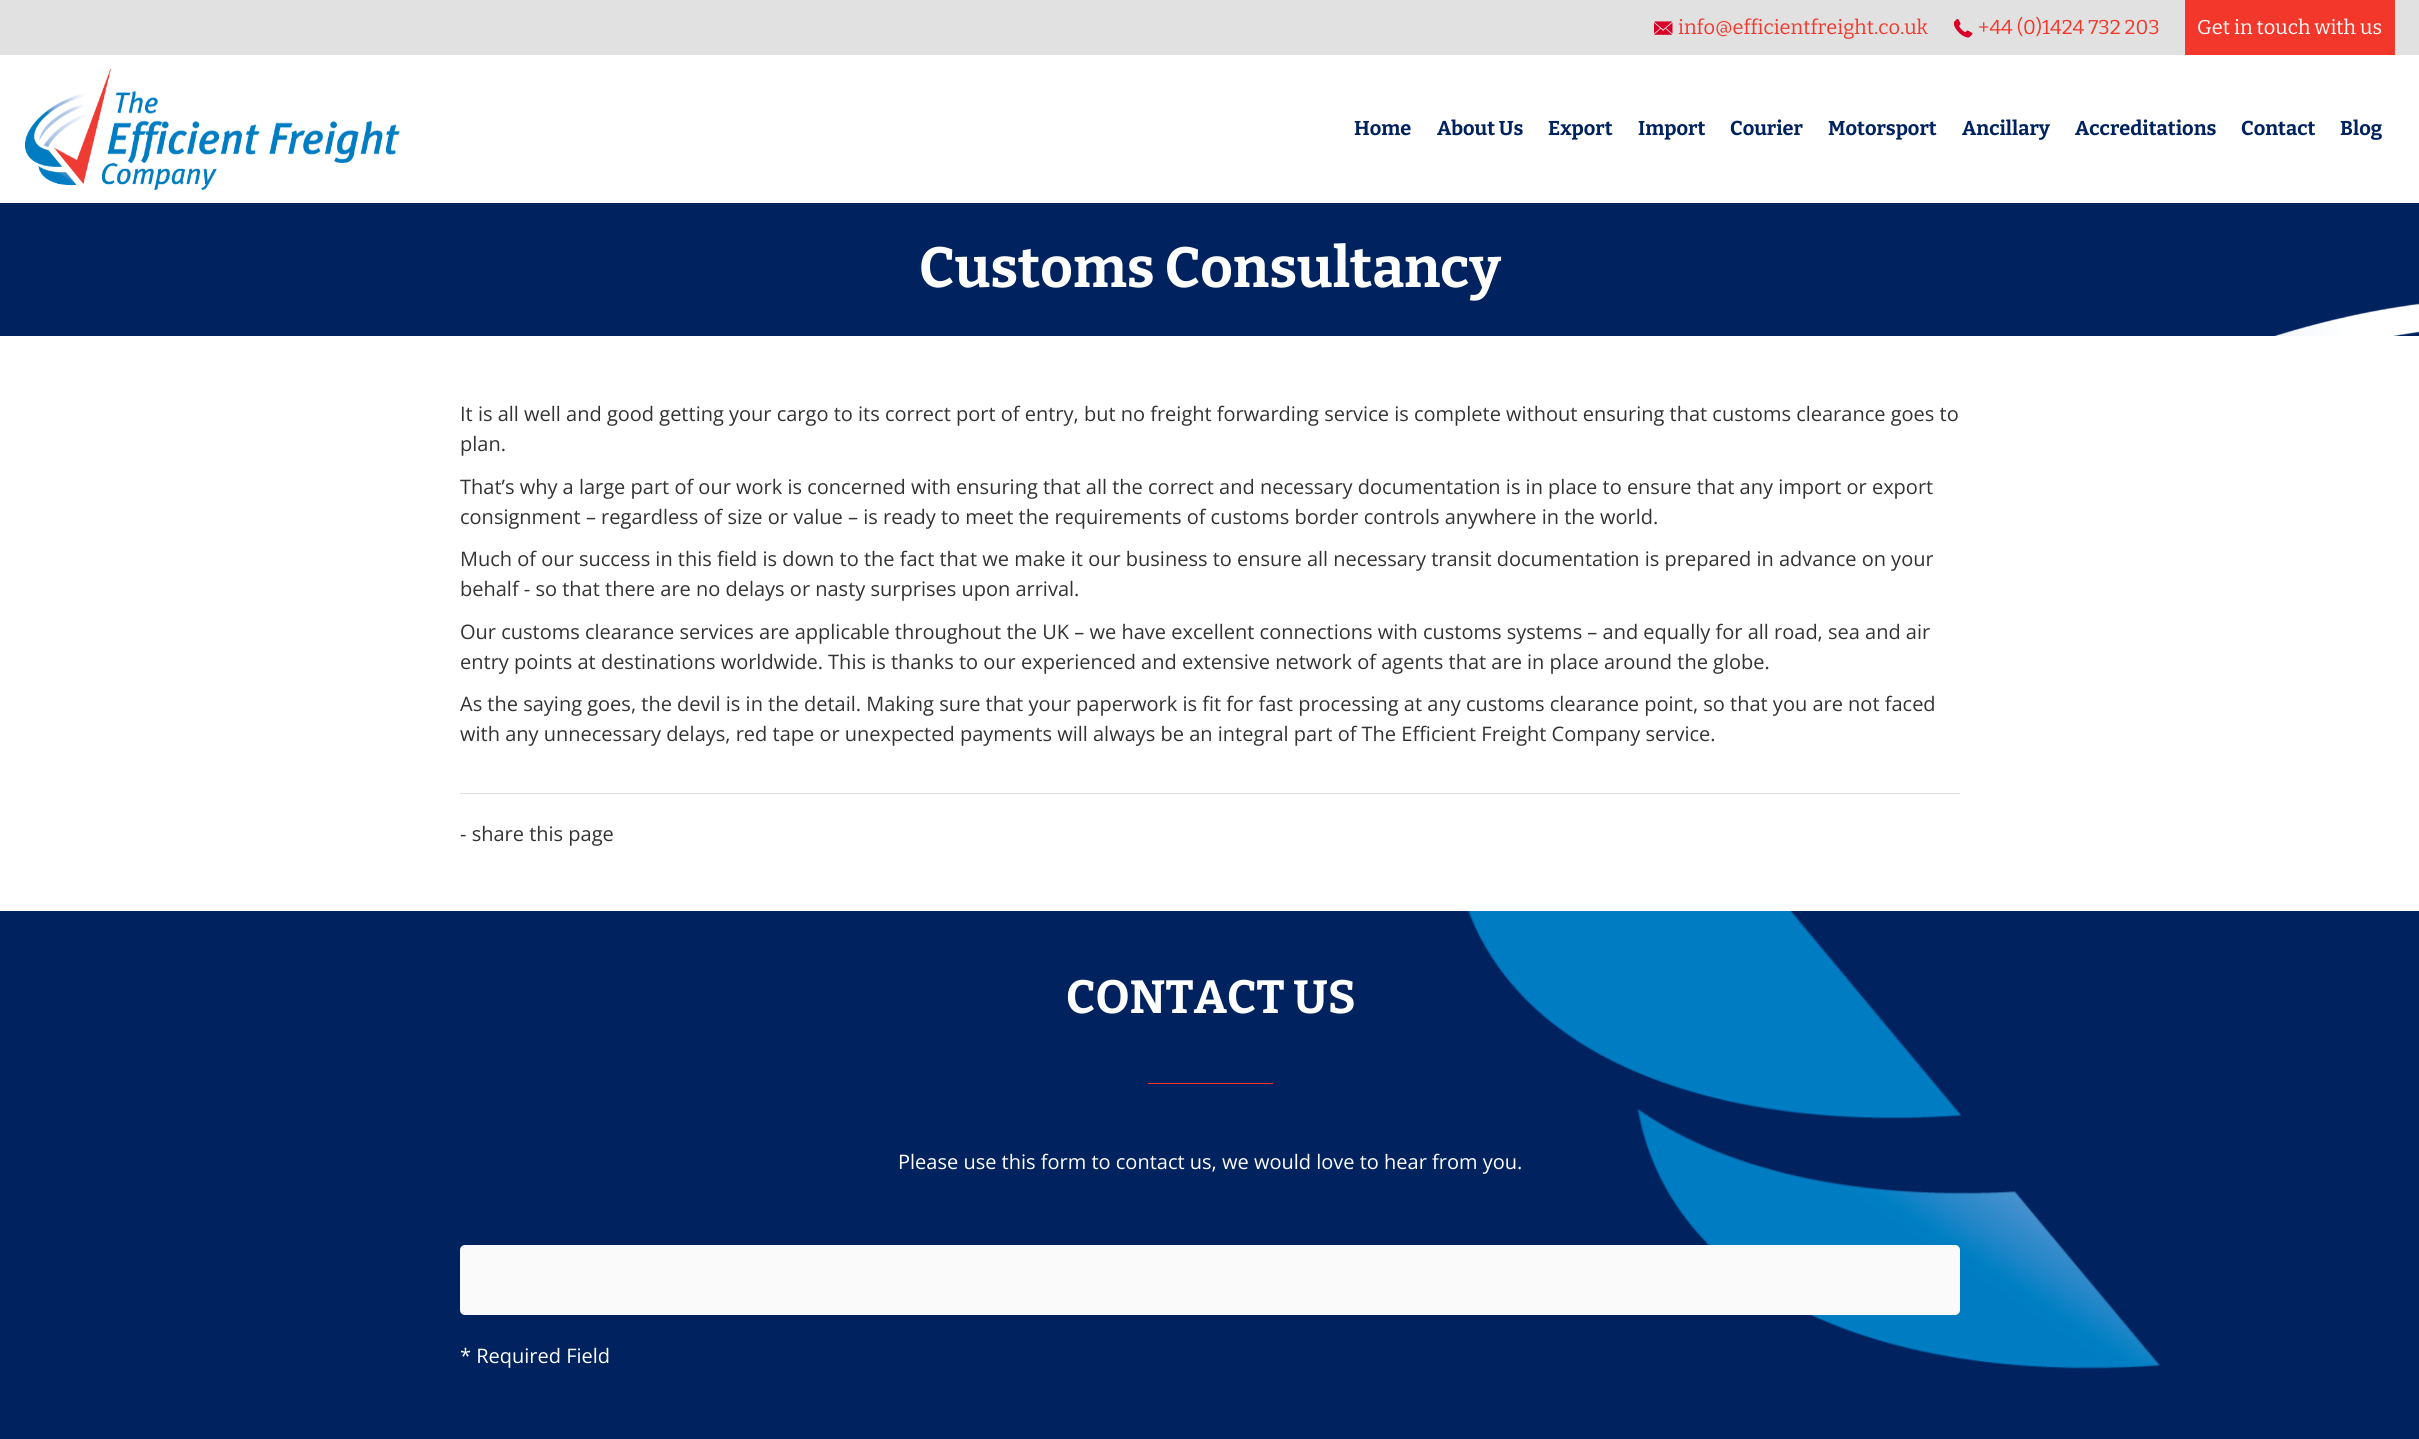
import math
import cairo

surface = cairo.ImageSurface(cairo.FORMAT_RGB24, 2419, 1439)
ctx = cairo.Context(surface)
options = cairo.FontOptions()
options.set_hint_metrics(cairo.HINT_METRICS_OFF)
options.set_hint_style(cairo.HINT_STYLE_NONE)
ctx.set_font_options(options)
ctx.set_miter_limit(4)


def round_rect(x, y, w, h, r):
    ctx.new_sub_path()
    for i, (u, v) in enumerate([(x + w - r, y + h - r), (x + r, y + h - r), (x + r, y + r), (x + w - r, y + r)]):
        ctx.arc(u, v, r, i * math.pi / 2, (i + 1) * math.pi / 2)
    ctx.close_path()


def picture(path, x, y, w, h):
    ctx.save()
    ctx.set_source_surface(cairo.ImageSurface.create_from_png(path), x, y)
    ctx.rectangle(x, y, w, h)
    ctx.fill()
    ctx.restore()


ctx.set_source_rgb(1, 1, 1)
ctx.paint()
ctx.set_source_rgb(0.882, 0.882, 0.882)
ctx.rectangle(0, 0, 2419, 55)
ctx.fill()
picture("img1.png", 1654, 21, 19, 14)
ctx.select_font_face("Bitter")
ctx.set_font_size(20)
ctx.set_source_rgb(0.953, 0.216, 0.165)
ctx.move_to(1678, 34)
ctx.show_text("info@efficientfreight.co.uk")
picture("img2.png", 1954, 19, 19, 19)
ctx.move_to(1978, 34)
ctx.show_text("+44 (0)1424 732 203")
ctx.rectangle(2185, 0, 210, 55)
ctx.fill()
ctx.set_source_rgb(1, 1, 1)
ctx.move_to(2197, 34)
ctx.show_text("Get in touch with us")
picture("img3.png", 25, 68, 375, 122)
ctx.select_font_face("Bitter", cairo.FONT_SLANT_NORMAL, cairo.FONT_WEIGHT_BOLD)
ctx.set_source_rgb(0, 0.133, 0.369)
ctx.move_to(1354, 135)
ctx.show_text("Home")
ctx.move_to(1437, 135)
ctx.show_text("About Us")
ctx.move_to(1548, 135)
ctx.show_text("Export")
ctx.move_to(1638, 135)
ctx.show_text("Import")
ctx.move_to(1730, 135)
ctx.show_text("Courier")
ctx.move_to(1828, 135)
ctx.show_text("Motorsport")
ctx.move_to(1962, 135)
ctx.show_text("Ancillary")
ctx.move_to(2075, 135)
ctx.show_text("Accreditations")
ctx.move_to(2241, 135)
ctx.show_text("Contact")
ctx.move_to(2340, 135)
ctx.show_text("Blog")
ctx.rectangle(0, 203, 2419, 133)
ctx.fill()
picture("img4.png", 2274, 303, 145, 33)
ctx.set_font_size(56.4)
ctx.set_source_rgb(1, 1, 1)
ctx.move_to(919, 287)
ctx.show_text("Customs Consultancy")
ctx.select_font_face("Open Sans")
ctx.set_font_size(20)
ctx.set_source_rgb(0.2, 0.2, 0.2)
ctx.move_to(460, 421)
ctx.show_text("It is all well and good getting your cargo to its correct port of entry, but no freight forwarding service is complete without ensuring that customs clearance goes to")
ctx.move_to(460, 451)
ctx.show_text("plan.")
ctx.move_to(460, 494)
ctx.show_text("That’s why a large part of our work is concerned with ensuring that all the correct and necessary documentation is in place to ensure that any import or export")
ctx.move_to(460, 524)
ctx.show_text("consignment – regardless of size or value – is ready to meet the requirements of customs border controls anywhere in the world.")
ctx.move_to(460, 566)
ctx.show_text("Much of our success in this field is down to the fact that we make it our business to ensure all necessary transit documentation is prepared in advance on your")
ctx.move_to(460, 596)
ctx.show_text("behalf - so that there are no delays or nasty surprises upon arrival.")
ctx.move_to(460, 639)
ctx.show_text("Our customs clearance services are applicable throughout the UK – we have excellent connections with customs systems – and equally for all road, sea and air")
ctx.move_to(460, 669)
ctx.show_text("entry points at destinations worldwide. This is thanks to our experienced and extensive network of agents that are in place around the globe.")
ctx.move_to(460, 711)
ctx.show_text("As the saying goes, the devil is in the detail. Making sure that your paperwork is fit for fast processing at any customs clearance point, so that you are not faced")
ctx.move_to(460, 741)
ctx.show_text("with any unnecessary delays, red tape or unexpected payments will always be an integral part of The Efficient Freight Company service.")
ctx.set_source_rgb(0.882, 0.882, 0.882)
ctx.rectangle(460, 793, 1500, 1)
ctx.fill()
ctx.set_source_rgb(0.2, 0.2, 0.2)
ctx.move_to(460, 841)
ctx.show_text("- share this page")
ctx.set_source_rgb(0, 0.133, 0.369)
ctx.rectangle(0, 911, 2419, 528)
ctx.fill()
picture("img5.png", 1467, 911, 693, 458)
ctx.select_font_face("Bitter", cairo.FONT_SLANT_NORMAL, cairo.FONT_WEIGHT_BOLD)
ctx.set_font_size(46.5)
ctx.set_source_rgb(1, 1, 1)
ctx.move_to(1066, 1013)
ctx.show_text("CONTACT US")
ctx.set_source_rgb(0.953, 0.216, 0.165)
ctx.rectangle(1148, 1083, 125, 1)
ctx.fill()
ctx.select_font_face("Open Sans")
ctx.set_font_size(20)
ctx.set_source_rgb(1, 1, 1)
ctx.move_to(898, 1169)
ctx.show_text("Please use this form to contact us, we would love to hear from you.")
ctx.set_source_rgb(0.98, 0.98, 0.98)
round_rect(460, 1245, 1500, 70, 5)
ctx.fill()
ctx.set_source_rgb(1, 1, 1)
ctx.move_to(460, 1363)
ctx.show_text("* Required Field")
surface.write_to_png("page.png")
